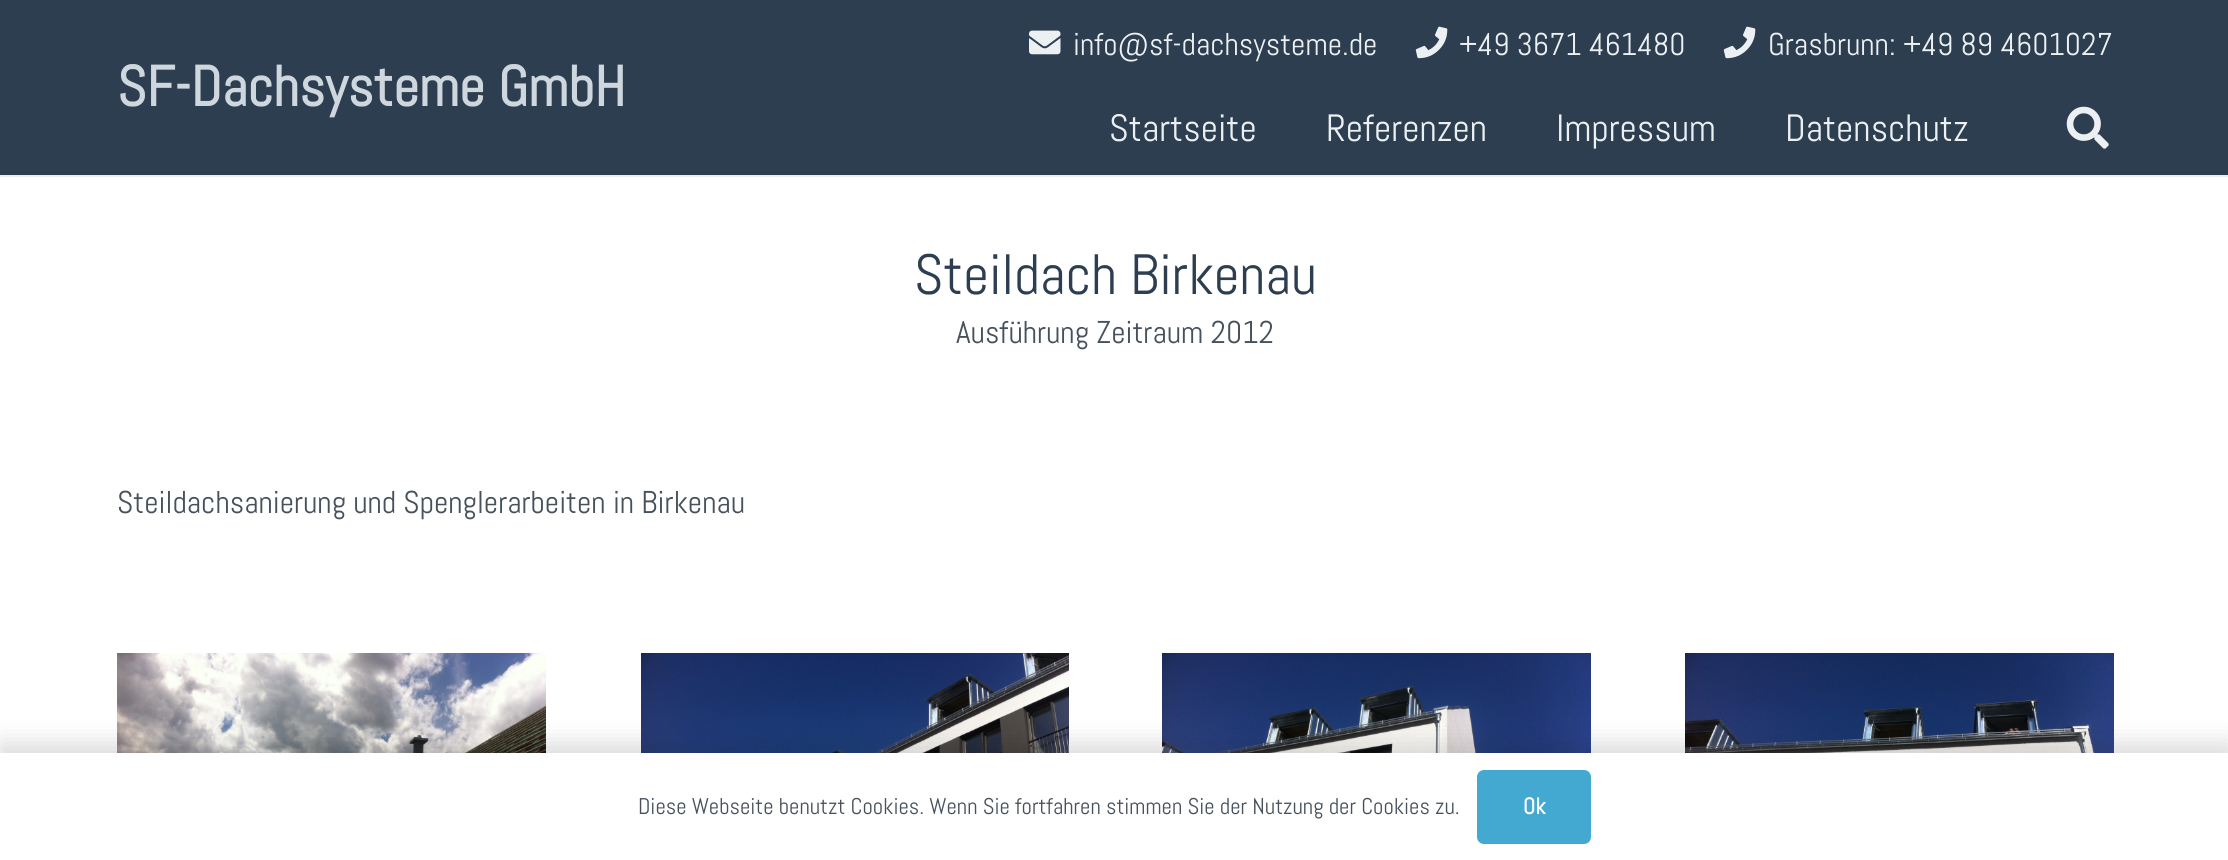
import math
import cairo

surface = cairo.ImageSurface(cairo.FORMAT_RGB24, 2228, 860)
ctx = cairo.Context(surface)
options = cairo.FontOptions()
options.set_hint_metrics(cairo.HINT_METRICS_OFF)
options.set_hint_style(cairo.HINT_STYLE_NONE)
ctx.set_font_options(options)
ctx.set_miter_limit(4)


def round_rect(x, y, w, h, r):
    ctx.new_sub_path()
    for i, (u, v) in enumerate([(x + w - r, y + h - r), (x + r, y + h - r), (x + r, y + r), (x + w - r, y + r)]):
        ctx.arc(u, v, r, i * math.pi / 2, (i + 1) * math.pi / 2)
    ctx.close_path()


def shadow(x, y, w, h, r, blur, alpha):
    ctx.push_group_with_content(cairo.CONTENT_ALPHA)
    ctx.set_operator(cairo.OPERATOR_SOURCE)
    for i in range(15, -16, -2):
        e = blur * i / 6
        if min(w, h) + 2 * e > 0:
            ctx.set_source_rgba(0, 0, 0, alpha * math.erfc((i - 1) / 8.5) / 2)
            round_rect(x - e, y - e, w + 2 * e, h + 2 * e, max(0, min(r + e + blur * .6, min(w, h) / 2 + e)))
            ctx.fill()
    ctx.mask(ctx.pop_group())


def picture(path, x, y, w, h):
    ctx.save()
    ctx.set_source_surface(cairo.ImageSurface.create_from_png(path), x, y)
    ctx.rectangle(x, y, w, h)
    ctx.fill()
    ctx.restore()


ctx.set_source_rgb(1, 1, 1)
ctx.paint()
ctx.set_source_rgb(0.922, 0.922, 0.922)
ctx.new_path()
ctx.move_to(0, 175)
ctx.line_to(0, 177)
ctx.line_to(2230, 177)
ctx.line_to(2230, 2)
ctx.line_to(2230, 175)
ctx.close_path()
ctx.fill()
ctx.set_source_rgb(0.173, 0.243, 0.314)
ctx.rectangle(0, 0, 2228, 175)
ctx.fill()
ctx.select_font_face("Abel", cairo.FONT_SLANT_NORMAL, cairo.FONT_WEIGHT_BOLD)
ctx.set_font_size(56.75)
ctx.set_source_rgb(0.808, 0.839, 0.871)
ctx.move_to(117, 106)
ctx.show_text("SF-Dachsysteme GmbH")
picture("img1.png", 1029, 30, 32, 25)
ctx.select_font_face("Abel")
ctx.set_font_size(31.5)
ctx.set_source_rgb(0.929, 0.941, 0.949)
ctx.move_to(1073, 55)
ctx.show_text("info@sf-dachsysteme.de")
picture("img2.png", 1415, 26, 33, 33)
ctx.move_to(1459, 55)
ctx.show_text("+49 3671 461480")
picture("img2.png", 1723, 26, 33, 33)
ctx.move_to(1768, 55)
ctx.show_text("Grasbrunn: +49 89 4601027")
ctx.set_font_size(38)
ctx.move_to(1109, 141)
ctx.show_text("Startseite")
ctx.move_to(1326, 141)
ctx.show_text("Referenzen")
ctx.move_to(1556, 141)
ctx.show_text("Impressum")
ctx.move_to(1785, 141)
ctx.show_text("Datenschutz")
picture("img3.png", 2066, 106, 43, 43)
ctx.set_font_size(56.75)
ctx.set_source_rgb(0.173, 0.243, 0.314)
ctx.move_to(914, 294)
ctx.show_text("Steildach Birkenau")
ctx.set_font_size(31.5)
ctx.set_source_rgb(0.275, 0.318, 0.361)
ctx.move_to(956, 343)
ctx.show_text("Ausführung Zeitraum 2012")
ctx.move_to(117, 513)
ctx.show_text("Steildachsanierung und Spenglerarbeiten in Birkenau")
picture("img4.png", 117, 653, 429, 100)
picture("img5.png", 641, 653, 428, 100)
picture("img6.png", 1162, 653, 429, 100)
picture("img7.png", 1685, 653, 429, 100)
ctx.set_source_rgb(0, 0, 0)
shadow(0, 744, 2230, 108, 0, 13, 0.15)
ctx.set_source_rgb(1, 1, 1)
ctx.rectangle(0, 753, 2228, 107)
ctx.fill()
ctx.set_font_size(22.75)
ctx.set_source_rgb(0.275, 0.318, 0.361)
ctx.move_to(638, 814)
ctx.show_text("Diese Webseite benutzt Cookies. Wenn Sie fortfahren stimmen Sie der Nutzung der Cookies zu.")
ctx.set_source_rgb(0.263, 0.663, 0.82)
round_rect(1477, 770, 114, 74, 7)
ctx.fill()
ctx.select_font_face("Abel", cairo.FONT_SLANT_NORMAL, cairo.FONT_WEIGHT_BOLD)
ctx.set_source_rgb(1, 1, 1)
ctx.move_to(1523, 814)
ctx.show_text("Ok")
surface.write_to_png("page.png")
